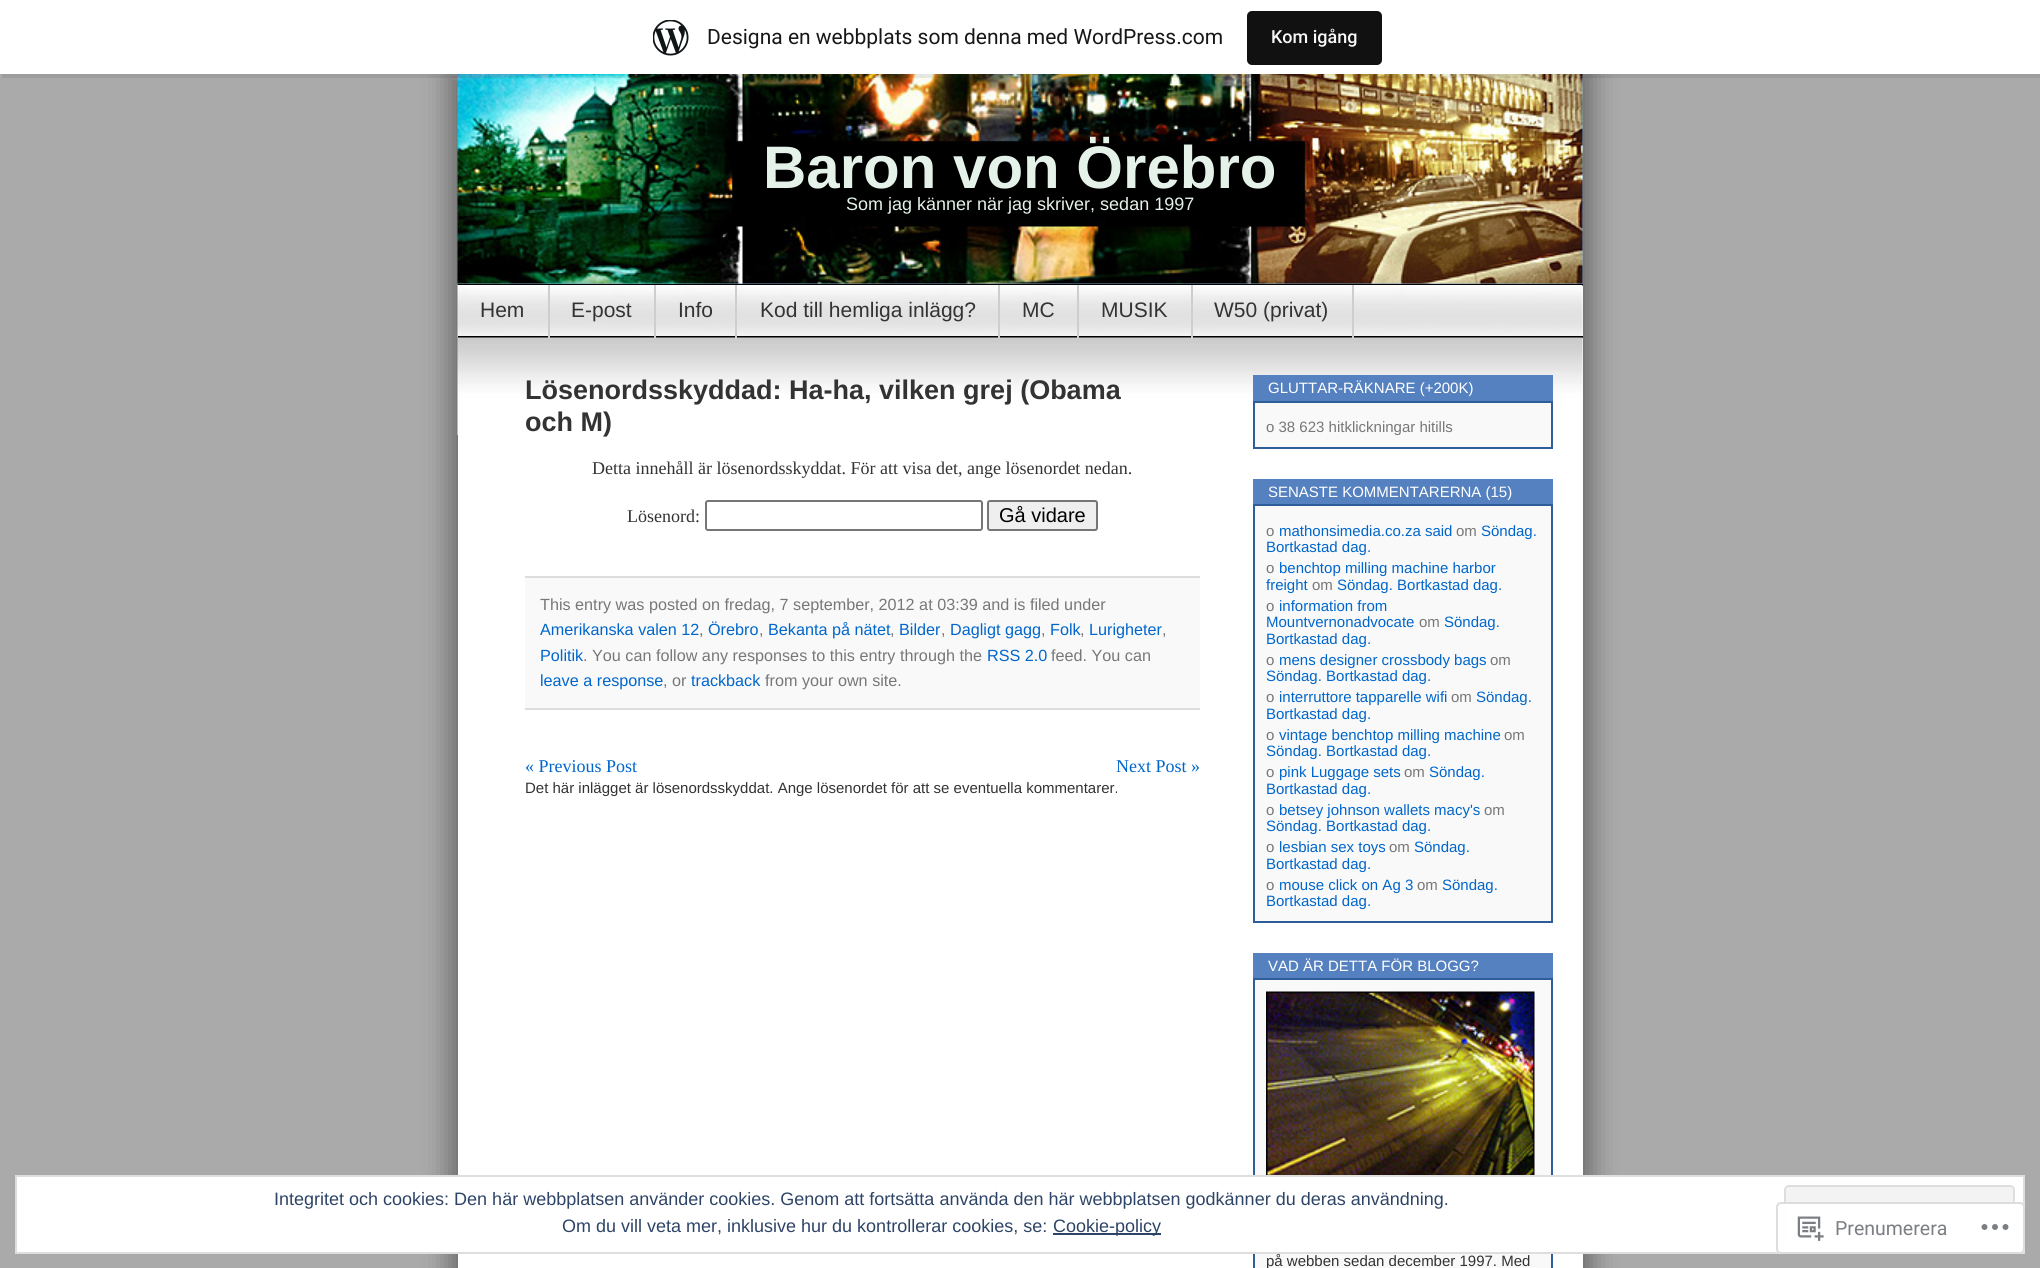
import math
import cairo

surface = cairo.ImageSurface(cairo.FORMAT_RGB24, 2040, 1268)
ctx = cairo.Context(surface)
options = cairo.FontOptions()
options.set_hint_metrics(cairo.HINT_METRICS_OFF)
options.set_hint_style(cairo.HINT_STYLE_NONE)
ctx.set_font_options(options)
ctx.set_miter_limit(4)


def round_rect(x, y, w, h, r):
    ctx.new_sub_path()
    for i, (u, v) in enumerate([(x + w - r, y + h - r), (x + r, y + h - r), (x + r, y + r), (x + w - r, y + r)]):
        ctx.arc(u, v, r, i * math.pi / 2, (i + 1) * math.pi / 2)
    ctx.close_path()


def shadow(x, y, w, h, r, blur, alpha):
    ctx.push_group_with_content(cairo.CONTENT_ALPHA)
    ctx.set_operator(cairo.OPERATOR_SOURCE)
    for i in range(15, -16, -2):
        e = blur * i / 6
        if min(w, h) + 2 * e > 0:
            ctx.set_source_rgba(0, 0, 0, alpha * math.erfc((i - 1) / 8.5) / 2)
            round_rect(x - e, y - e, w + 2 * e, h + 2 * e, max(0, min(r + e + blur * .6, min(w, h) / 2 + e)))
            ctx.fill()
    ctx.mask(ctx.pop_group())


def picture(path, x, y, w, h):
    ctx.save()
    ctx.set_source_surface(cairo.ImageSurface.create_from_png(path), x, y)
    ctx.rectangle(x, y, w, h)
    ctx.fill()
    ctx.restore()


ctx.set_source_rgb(0.667, 0.667, 0.667)
ctx.paint()
ctx.set_source_rgb(0, 0, 0)
shadow(446, 74, 1125, 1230, 0, 12, 0.3)
shadow(470, 71, 1125, 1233, 0, 12, 0.3)
ctx.set_source_rgb(0.451, 0.627, 0.773)
ctx.rectangle(458, 74, 1125, 210)
ctx.fill()
picture("img2.png", 457, 74, 1126, 210)
ctx.set_source_rgba(0, 0, 0, 0.08)
ctx.new_path()
ctx.move_to(2, 74)
ctx.line_to(2, 78)
ctx.line_to(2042, 78)
ctx.line_to(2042, 5)
ctx.line_to(2040, 5)
ctx.line_to(2040, 74)
ctx.close_path()
ctx.fill()
ctx.set_source_rgb(1, 1, 1)
ctx.rectangle(0, 0, 2040, 74)
ctx.fill()
picture("img1.png", 653, 20, 36, 36)
ctx.select_font_face("Roboto")
ctx.set_font_size(21)
ctx.set_source_rgb(0.09, 0.09, 0.09)
ctx.move_to(707, 44)
ctx.show_text("Designa en webbplats som denna med WordPress.com")
ctx.set_source_rgb(0.067, 0.067, 0.067)
round_rect(1247, 11, 135, 54, 5)
ctx.fill()
ctx.select_font_face("Roboto Medium")
ctx.set_font_size(18)
ctx.set_source_rgb(0.965, 0.969, 0.969)
ctx.move_to(1271, 43)
ctx.show_text("Kom igång")
ctx.set_source_rgb(1, 1, 1)
ctx.rectangle(458, 286, 1125, 982)
ctx.fill()
ctx.set_source_rgb(0, 0, 0)
ctx.rectangle(458, 284, 1125, 2)
ctx.fill()
ctx.select_font_face("Liberation Sans", cairo.FONT_SLANT_NORMAL, cairo.FONT_WEIGHT_BOLD)
ctx.set_font_size(60)
ctx.set_source_rgb(0.898, 0.949, 0.914)
ctx.move_to(763, 188)
ctx.show_text("Baron von Örebro")
ctx.select_font_face("Liberation Sans")
ctx.set_font_size(18)
ctx.move_to(846, 210)
ctx.show_text("Som jag känner när jag skriver, sedan 1997")
picture("img3.png", 457, 285, 1126, 53)
ctx.set_source_rgb(0, 0, 0)
ctx.rectangle(458, 336, 1125, 2)
ctx.fill()
picture("img4.png", 457, 337, 1126, 98)
ctx.set_source_rgb(0.808, 0.808, 0.808)
ctx.rectangle(548, 285, 2, 53)
ctx.fill()
ctx.set_font_size(21)
ctx.set_source_rgb(0.2, 0.2, 0.2)
ctx.move_to(480, 317)
ctx.show_text("Hem")
ctx.set_source_rgb(0.808, 0.808, 0.808)
ctx.rectangle(654, 285, 2, 53)
ctx.fill()
ctx.set_source_rgb(0.2, 0.2, 0.2)
ctx.move_to(571, 317)
ctx.show_text("E-post")
ctx.set_source_rgb(0.808, 0.808, 0.808)
ctx.rectangle(735, 285, 2, 53)
ctx.fill()
ctx.set_source_rgb(0.2, 0.2, 0.2)
ctx.move_to(678, 317)
ctx.show_text("Info")
ctx.set_source_rgb(0.808, 0.808, 0.808)
ctx.rectangle(998, 285, 2, 53)
ctx.fill()
ctx.set_source_rgb(0.2, 0.2, 0.2)
ctx.move_to(760, 317)
ctx.show_text("Kod till hemliga inlägg?")
ctx.set_source_rgb(0.808, 0.808, 0.808)
ctx.rectangle(1077, 285, 2, 53)
ctx.fill()
ctx.set_source_rgb(0.2, 0.2, 0.2)
ctx.move_to(1022, 317)
ctx.show_text("MC")
ctx.set_source_rgb(0.808, 0.808, 0.808)
ctx.rectangle(1191, 285, 2, 53)
ctx.fill()
ctx.set_source_rgb(0.2, 0.2, 0.2)
ctx.move_to(1101, 317)
ctx.show_text("MUSIK")
ctx.set_source_rgb(0.808, 0.808, 0.808)
ctx.rectangle(1352, 285, 2, 53)
ctx.fill()
ctx.set_source_rgb(0.2, 0.2, 0.2)
ctx.move_to(1214, 317)
ctx.show_text("W50 (privat)")
ctx.select_font_face("Liberation Sans", cairo.FONT_SLANT_NORMAL, cairo.FONT_WEIGHT_BOLD)
ctx.set_font_size(27)
ctx.move_to(525, 399)
ctx.show_text("Lösenordsskyddad: Ha-ha, vilken grej (Obama")
ctx.move_to(525, 431)
ctx.show_text("och M)")
ctx.select_font_face("Liberation Serif")
ctx.set_font_size(18)
ctx.move_to(592, 474)
ctx.show_text("Detta innehåll är lösenordsskyddat. För att visa det, ange lösenordet nedan.")
ctx.move_to(627, 522)
ctx.show_text("Lösenord:")
round_rect(706, 501, 276, 29, 2)
ctx.set_source_rgb(0.463, 0.463, 0.463)
ctx.stroke()
ctx.set_source_rgb(0.937, 0.937, 0.937)
round_rect(988, 501, 109, 29, 2)
ctx.fill_preserve()
ctx.set_source_rgb(0.463, 0.463, 0.463)
ctx.stroke()
ctx.select_font_face("Liberation Sans")
ctx.set_font_size(20)
ctx.set_source_rgb(0, 0, 0)
ctx.move_to(999, 522)
ctx.show_text("Gå vidare")
ctx.set_source_rgb(0.973, 0.973, 0.973)
ctx.rectangle(525, 578, 675, 130)
ctx.fill()
ctx.set_source_rgb(0.867, 0.867, 0.867)
ctx.rectangle(525, 576, 675, 2)
ctx.fill()
ctx.rectangle(525, 708, 675, 2)
ctx.fill()
ctx.set_font_size(16.2)
ctx.set_source_rgb(0.467, 0.467, 0.467)
ctx.move_to(540, 610)
ctx.show_text("This entry was posted on fredag, 7 september, 2012 at 03:39 and is filed under")
ctx.set_source_rgb(0, 0.4, 0.8)
ctx.move_to(540, 635)
ctx.show_text("Amerikanska valen 12")
ctx.set_source_rgb(0.467, 0.467, 0.467)
ctx.move_to(699, 635)
ctx.show_text(",")
ctx.set_source_rgb(0, 0.4, 0.8)
ctx.move_to(708, 635)
ctx.show_text("Örebro")
ctx.set_source_rgb(0.467, 0.467, 0.467)
ctx.move_to(759, 635)
ctx.show_text(",")
ctx.set_source_rgb(0, 0.4, 0.8)
ctx.move_to(768, 635)
ctx.show_text("Bekanta på nätet")
ctx.set_source_rgb(0.467, 0.467, 0.467)
ctx.move_to(890, 635)
ctx.show_text(",")
ctx.set_source_rgb(0, 0.4, 0.8)
ctx.move_to(899, 635)
ctx.show_text("Bilder")
ctx.set_source_rgb(0.467, 0.467, 0.467)
ctx.move_to(941, 635)
ctx.show_text(",")
ctx.set_source_rgb(0, 0.4, 0.8)
ctx.move_to(950, 635)
ctx.show_text("Dagligt gagg")
ctx.set_source_rgb(0.467, 0.467, 0.467)
ctx.move_to(1041, 635)
ctx.show_text(",")
ctx.set_source_rgb(0, 0.4, 0.8)
ctx.move_to(1050, 635)
ctx.show_text("Folk")
ctx.set_source_rgb(0.467, 0.467, 0.467)
ctx.move_to(1080, 635)
ctx.show_text(",")
ctx.set_source_rgb(0, 0.4, 0.8)
ctx.move_to(1089, 635)
ctx.show_text("Lurigheter")
ctx.set_source_rgb(0.467, 0.467, 0.467)
ctx.move_to(1162, 635)
ctx.show_text(",")
ctx.set_source_rgb(0, 0.4, 0.8)
ctx.move_to(540, 661)
ctx.show_text("Politik")
ctx.set_source_rgb(0.467, 0.467, 0.467)
ctx.move_to(583, 661)
ctx.show_text(". You can follow any responses to this entry through the")
ctx.set_source_rgb(0, 0.4, 0.8)
ctx.move_to(987, 661)
ctx.show_text("RSS 2.0")
ctx.set_source_rgb(0.467, 0.467, 0.467)
ctx.move_to(1051, 661)
ctx.show_text("feed. You can")
ctx.set_source_rgb(0, 0.4, 0.8)
ctx.move_to(540, 686)
ctx.show_text("leave a response")
ctx.set_source_rgb(0.467, 0.467, 0.467)
ctx.move_to(663, 686)
ctx.show_text(", or")
ctx.set_source_rgb(0, 0.4, 0.8)
ctx.move_to(691, 686)
ctx.show_text("trackback")
ctx.set_source_rgb(0.467, 0.467, 0.467)
ctx.move_to(765, 686)
ctx.show_text("from your own site.")
ctx.select_font_face("Liberation Serif")
ctx.set_font_size(18)
ctx.set_source_rgb(0, 0.4, 0.8)
ctx.move_to(525, 772)
ctx.show_text("« Previous Post")
ctx.move_to(1116, 772)
ctx.show_text("Next Post »")
ctx.select_font_face("Liberation Sans")
ctx.set_font_size(15)
ctx.set_source_rgb(0.2, 0.2, 0.2)
ctx.move_to(525, 793)
ctx.show_text("Det här inlägget är lösenordsskyddat. Ange lösenordet för att se eventuella kommentarer.")
ctx.set_source_rgb(0.333, 0.506, 0.753)
ctx.rectangle(1253, 375, 300, 26)
ctx.fill()
ctx.set_source_rgb(1, 1, 1)
ctx.move_to(1268, 393)
ctx.show_text("GLUTTAR-RÄKNARE (+200K)")
ctx.set_source_rgb(0.973, 0.973, 0.973)
ctx.rectangle(1254, 402, 298, 46)
ctx.fill_preserve()
ctx.set_source_rgb(0.18, 0.365, 0.6)
ctx.stroke()
ctx.set_source_rgb(0.467, 0.467, 0.467)
ctx.move_to(1266, 432)
ctx.show_text("o 38 623 hitklickningar hitills")
ctx.set_source_rgb(0.333, 0.506, 0.753)
ctx.rectangle(1253, 479, 300, 25)
ctx.fill()
ctx.set_source_rgb(1, 1, 1)
ctx.move_to(1268, 497)
ctx.show_text("SENASTE KOMMENTARERNA (15)")
ctx.set_source_rgb(0.973, 0.973, 0.973)
ctx.rectangle(1254, 505, 298, 417)
ctx.fill_preserve()
ctx.set_source_rgb(0.18, 0.365, 0.6)
ctx.stroke()
ctx.set_source_rgb(0.467, 0.467, 0.467)
ctx.move_to(1266, 536)
ctx.show_text("o")
ctx.set_source_rgb(0, 0.4, 0.8)
ctx.move_to(1279, 536)
ctx.show_text("mathonsimedia.co.za said")
ctx.set_source_rgb(0.467, 0.467, 0.467)
ctx.move_to(1456, 536)
ctx.show_text("om")
ctx.set_source_rgb(0, 0.4, 0.8)
ctx.move_to(1481, 536)
ctx.show_text("Söndag.")
ctx.move_to(1266, 552)
ctx.show_text("Bortkastad dag.")
ctx.set_source_rgb(0.467, 0.467, 0.467)
ctx.move_to(1266, 573)
ctx.show_text("o")
ctx.set_source_rgb(0, 0.4, 0.8)
ctx.move_to(1279, 573)
ctx.show_text("benchtop milling machine harbor")
ctx.move_to(1266, 590)
ctx.show_text("freight")
ctx.set_source_rgb(0.467, 0.467, 0.467)
ctx.move_to(1312, 590)
ctx.show_text("om")
ctx.set_source_rgb(0, 0.4, 0.8)
ctx.move_to(1337, 590)
ctx.show_text("Söndag. Bortkastad dag.")
ctx.set_source_rgb(0.467, 0.467, 0.467)
ctx.move_to(1266, 611)
ctx.show_text("o")
ctx.set_source_rgb(0, 0.4, 0.8)
ctx.move_to(1279, 611)
ctx.show_text("information from")
ctx.move_to(1266, 627)
ctx.show_text("Mountvernonadvocate")
ctx.set_source_rgb(0.467, 0.467, 0.467)
ctx.move_to(1419, 627)
ctx.show_text("om")
ctx.set_source_rgb(0, 0.4, 0.8)
ctx.move_to(1444, 627)
ctx.show_text("Söndag.")
ctx.move_to(1266, 644)
ctx.show_text("Bortkastad dag.")
ctx.set_source_rgb(0.467, 0.467, 0.467)
ctx.move_to(1266, 665)
ctx.show_text("o")
ctx.set_source_rgb(0, 0.4, 0.8)
ctx.move_to(1279, 665)
ctx.show_text("mens designer crossbody bags")
ctx.set_source_rgb(0.467, 0.467, 0.467)
ctx.move_to(1490, 665)
ctx.show_text("om")
ctx.set_source_rgb(0, 0.4, 0.8)
ctx.move_to(1266, 681)
ctx.show_text("Söndag. Bortkastad dag.")
ctx.set_source_rgb(0.467, 0.467, 0.467)
ctx.move_to(1266, 702)
ctx.show_text("o")
ctx.set_source_rgb(0, 0.4, 0.8)
ctx.move_to(1279, 702)
ctx.show_text("interruttore tapparelle wifi")
ctx.set_source_rgb(0.467, 0.467, 0.467)
ctx.move_to(1451, 702)
ctx.show_text("om")
ctx.set_source_rgb(0, 0.4, 0.8)
ctx.move_to(1476, 702)
ctx.show_text("Söndag.")
ctx.move_to(1266, 719)
ctx.show_text("Bortkastad dag.")
ctx.set_source_rgb(0.467, 0.467, 0.467)
ctx.move_to(1266, 740)
ctx.show_text("o")
ctx.set_source_rgb(0, 0.4, 0.8)
ctx.move_to(1279, 740)
ctx.show_text("vintage benchtop milling machine")
ctx.set_source_rgb(0.467, 0.467, 0.467)
ctx.move_to(1504, 740)
ctx.show_text("om")
ctx.set_source_rgb(0, 0.4, 0.8)
ctx.move_to(1266, 756)
ctx.show_text("Söndag. Bortkastad dag.")
ctx.set_source_rgb(0.467, 0.467, 0.467)
ctx.move_to(1266, 777)
ctx.show_text("o")
ctx.set_source_rgb(0, 0.4, 0.8)
ctx.move_to(1279, 777)
ctx.show_text("pink Luggage sets")
ctx.set_source_rgb(0.467, 0.467, 0.467)
ctx.move_to(1404, 777)
ctx.show_text("om")
ctx.set_source_rgb(0, 0.4, 0.8)
ctx.move_to(1429, 777)
ctx.show_text("Söndag.")
ctx.move_to(1266, 794)
ctx.show_text("Bortkastad dag.")
ctx.set_source_rgb(0.467, 0.467, 0.467)
ctx.move_to(1266, 815)
ctx.show_text("o")
ctx.set_source_rgb(0, 0.4, 0.8)
ctx.move_to(1279, 815)
ctx.show_text("betsey johnson wallets macy's")
ctx.set_source_rgb(0.467, 0.467, 0.467)
ctx.move_to(1484, 815)
ctx.show_text("om")
ctx.set_source_rgb(0, 0.4, 0.8)
ctx.move_to(1266, 831)
ctx.show_text("Söndag. Bortkastad dag.")
ctx.set_source_rgb(0.467, 0.467, 0.467)
ctx.move_to(1266, 852)
ctx.show_text("o")
ctx.set_source_rgb(0, 0.4, 0.8)
ctx.move_to(1279, 852)
ctx.show_text("lesbian sex toys")
ctx.set_source_rgb(0.467, 0.467, 0.467)
ctx.move_to(1389, 852)
ctx.show_text("om")
ctx.set_source_rgb(0, 0.4, 0.8)
ctx.move_to(1414, 852)
ctx.show_text("Söndag.")
ctx.move_to(1266, 869)
ctx.show_text("Bortkastad dag.")
ctx.set_source_rgb(0.467, 0.467, 0.467)
ctx.move_to(1266, 890)
ctx.show_text("o")
ctx.set_source_rgb(0, 0.4, 0.8)
ctx.move_to(1279, 890)
ctx.show_text("mouse click on Ag 3")
ctx.set_source_rgb(0.467, 0.467, 0.467)
ctx.move_to(1417, 890)
ctx.show_text("om")
ctx.set_source_rgb(0, 0.4, 0.8)
ctx.move_to(1442, 890)
ctx.show_text("Söndag.")
ctx.move_to(1266, 906)
ctx.show_text("Bortkastad dag.")
ctx.set_source_rgb(0.333, 0.506, 0.753)
ctx.rectangle(1253, 953, 300, 25)
ctx.fill()
ctx.set_source_rgb(1, 1, 1)
ctx.move_to(1268, 971)
ctx.show_text("VAD ÄR DETTA FÖR BLOGG?")
ctx.set_source_rgb(0.973, 0.973, 0.973)
ctx.rectangle(1254, 979, 298, 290)
ctx.fill_preserve()
ctx.set_source_rgb(0.18, 0.365, 0.6)
ctx.stroke()
picture("img5.png", 1266, 991, 269, 184)
ctx.set_source_rgb(0.2, 0.2, 0.2)
ctx.move_to(1266, 1266)
ctx.show_text("på webben sedan december 1997. Med")
ctx.set_source_rgb(1, 1, 1)
ctx.rectangle(16, 1176, 2008, 77)
ctx.fill_preserve()
ctx.set_source_rgb(0.871, 0.871, 0.871)
ctx.stroke()
ctx.set_font_size(18)
ctx.set_source_rgb(0.18, 0.267, 0.404)
ctx.move_to(274, 1205)
ctx.show_text("Integritet och cookies: Den här webbplatsen använder cookies. Genom att fortsätta använda den här webbplatsen godkänner du deras användning.")
ctx.set_source_rgb(0.953, 0.953, 0.953)
round_rect(1785, 1186, 229, 57, 4)
ctx.fill_preserve()
ctx.set_source_rgb(0.871, 0.871, 0.871)
ctx.stroke()
ctx.set_source_rgb(0.18, 0.267, 0.404)
ctx.move_to(562, 1232)
ctx.show_text("Om du vill veta mer, inklusive hur du kontrollerar cookies, se:")
ctx.rectangle(1053, 1233, 108, 2)
ctx.fill()
ctx.move_to(1053, 1232)
ctx.show_text("Cookie-policy")
ctx.set_source_rgba(1, 1, 1, 0.98)
round_rect(1776, 1202, 249, 52, 5)
ctx.fill()
round_rect(1777, 1203, 247, 50, 4)
ctx.set_source_rgba(0.863, 0.863, 0.871, 0.98)
ctx.stroke()
picture("img6.png", 1797, 1216, 27, 25)
ctx.select_font_face("Roboto")
ctx.set_font_size(19.5)
ctx.set_source_rgb(0.482, 0.498, 0.518)
ctx.move_to(1835, 1235)
ctx.show_text("Prenumerera")
picture("img7.png", 1981, 1224, 28, 6)
surface.write_to_png("page.png")
